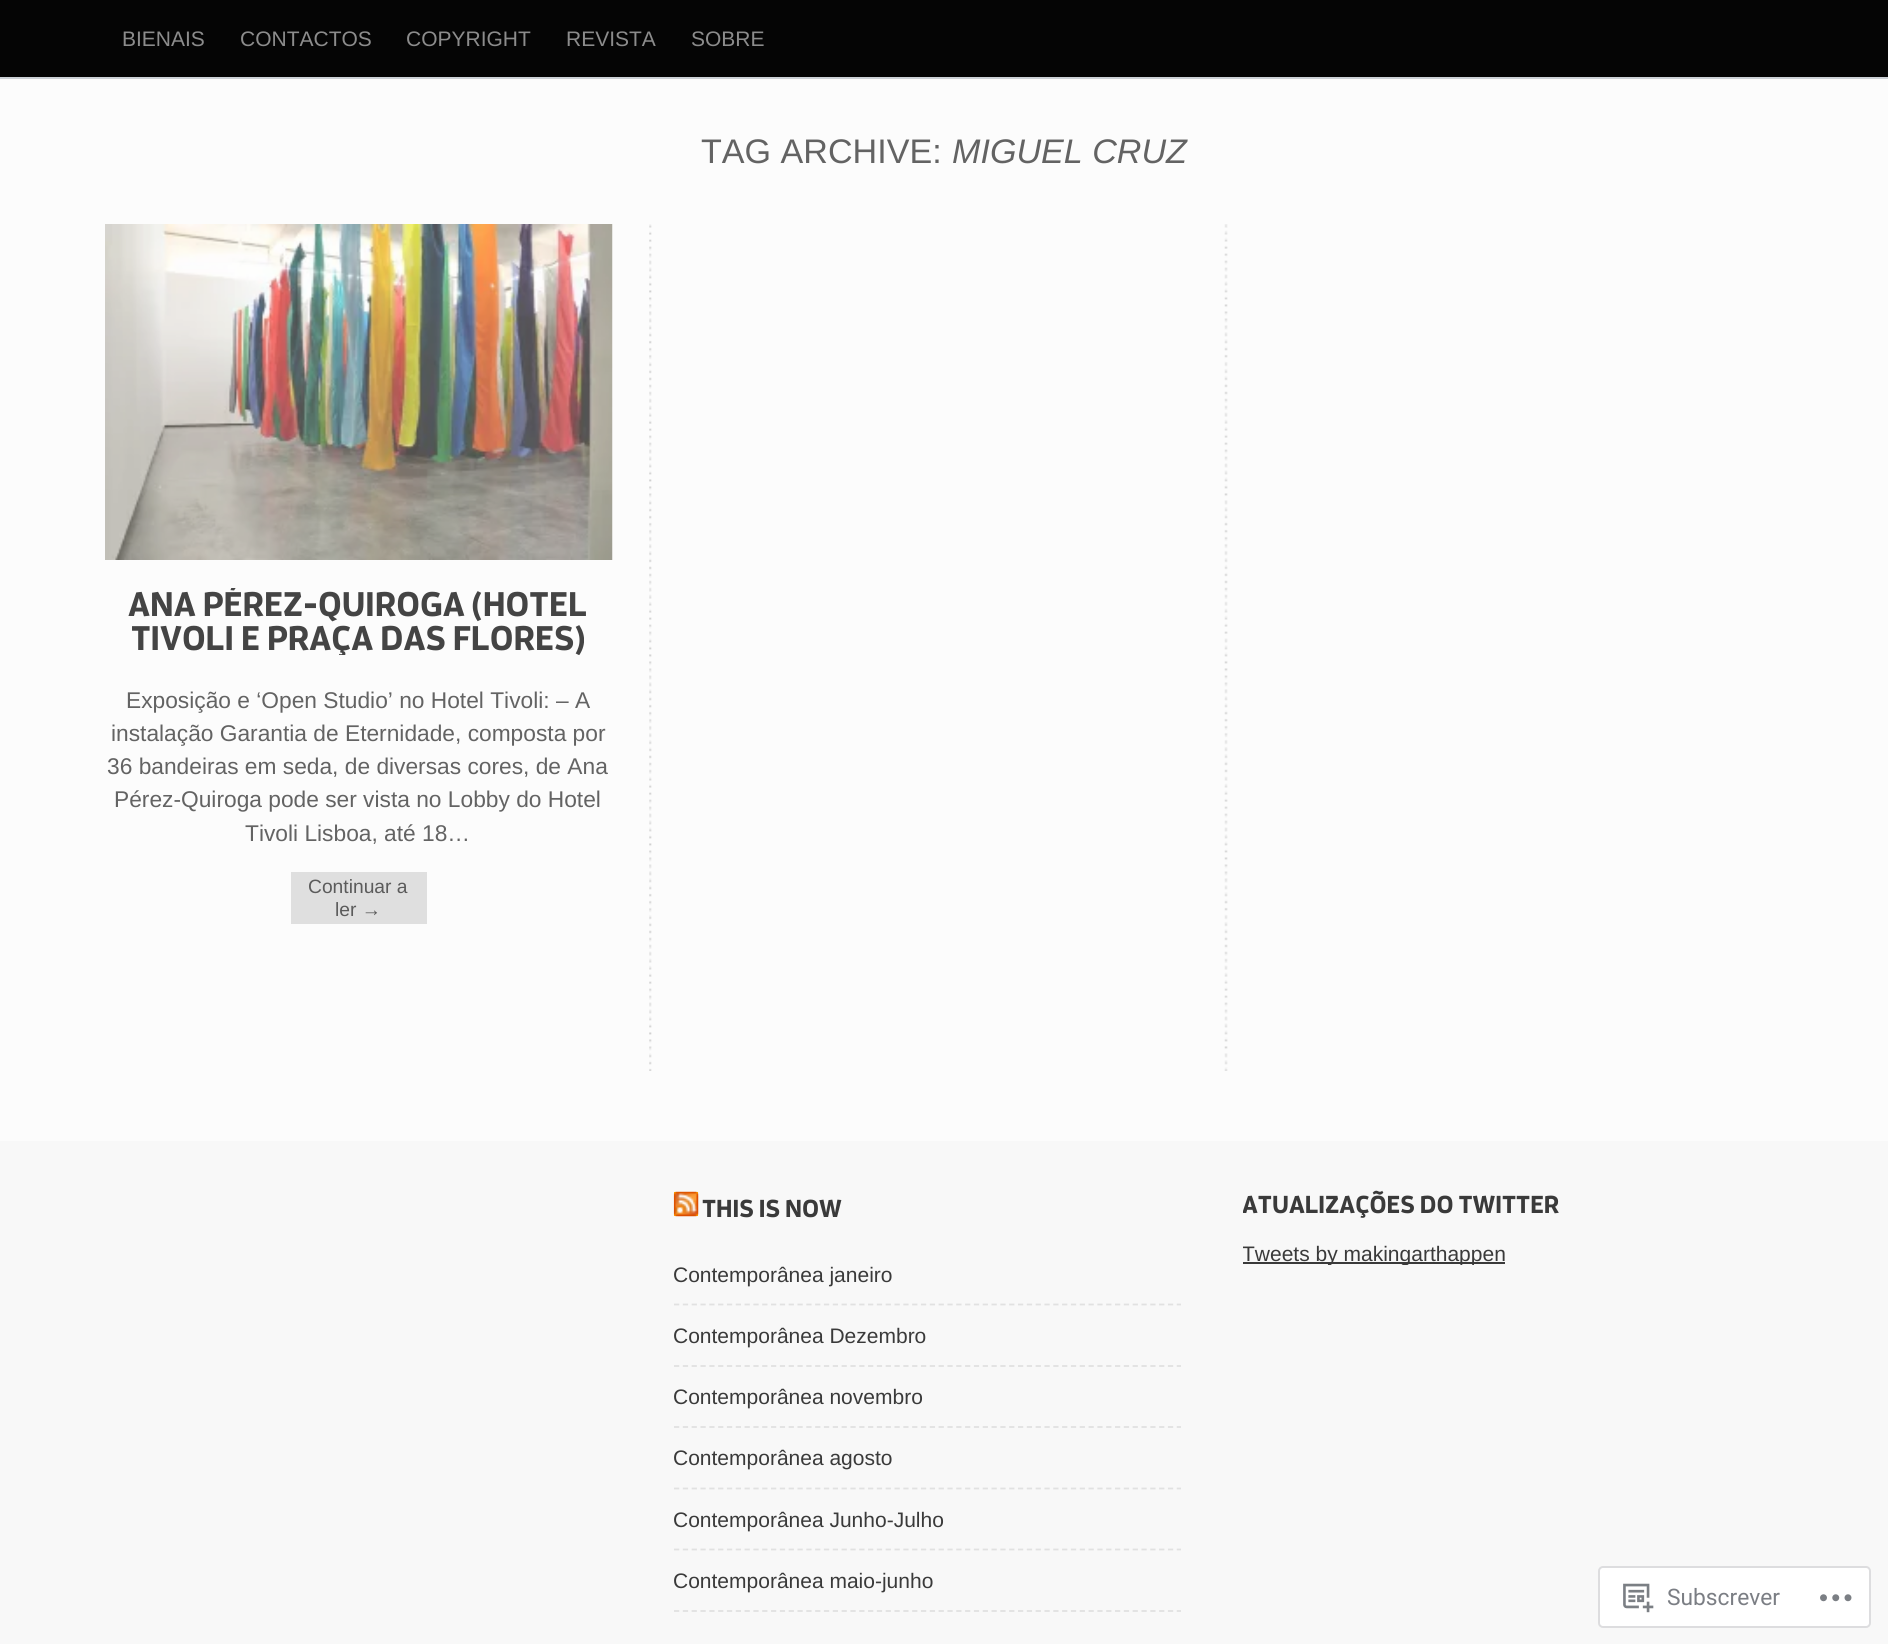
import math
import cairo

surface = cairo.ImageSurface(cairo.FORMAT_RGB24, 1888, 1644)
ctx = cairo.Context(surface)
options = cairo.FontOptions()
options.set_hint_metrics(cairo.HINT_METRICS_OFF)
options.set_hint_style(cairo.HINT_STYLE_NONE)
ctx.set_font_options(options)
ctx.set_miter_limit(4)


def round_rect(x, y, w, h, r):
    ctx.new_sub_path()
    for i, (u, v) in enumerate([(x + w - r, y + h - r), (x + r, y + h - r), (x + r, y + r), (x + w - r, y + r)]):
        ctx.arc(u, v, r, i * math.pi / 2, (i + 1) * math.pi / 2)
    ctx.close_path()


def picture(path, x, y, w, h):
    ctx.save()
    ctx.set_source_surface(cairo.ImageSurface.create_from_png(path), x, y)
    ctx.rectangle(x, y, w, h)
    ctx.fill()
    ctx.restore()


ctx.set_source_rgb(0.988, 0.988, 0.988)
ctx.paint()
ctx.set_source_rgb(0.02, 0.02, 0.02)
ctx.rectangle(0, 0, 1888, 77)
ctx.fill()
ctx.select_font_face("Liberation Sans")
ctx.set_font_size(21)
ctx.set_source_rgb(0.549, 0.549, 0.549)
ctx.move_to(122, 46)
ctx.show_text("BIENAIS")
ctx.move_to(240, 46)
ctx.show_text("CONTACTOS")
ctx.move_to(406, 46)
ctx.show_text("COPYRIGHT")
ctx.move_to(566, 46)
ctx.show_text("REVISTA")
ctx.move_to(691, 46)
ctx.show_text("SOBRE")
ctx.set_source_rgb(0.8, 0.82, 0.839)
ctx.rectangle(0, 77, 1888, 2)
ctx.fill()
ctx.set_font_size(34.1)
ctx.set_source_rgb(0.388, 0.388, 0.388)
ctx.move_to(701, 163)
ctx.show_text("TAG ARCHIVE:")
ctx.select_font_face("Liberation Sans", cairo.FONT_SLANT_ITALIC)
ctx.move_to(952, 163)
ctx.show_text("MIGUEL CRUZ")
picture("img1.png", 649, 224, 579, 847)
picture("img2.png", 105, 224, 508, 336)
ctx.save()
ctx.rectangle(105, 588, 508, 67)
ctx.clip()
ctx.select_font_face("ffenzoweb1", cairo.FONT_SLANT_NORMAL, cairo.FONT_WEIGHT_BOLD)
ctx.set_source_rgb(0.267, 0.267, 0.267)
ctx.move_to(128, 616)
ctx.show_text("ANA PÉREZ-QUIROGA (HOTEL")
ctx.move_to(131, 650)
ctx.show_text("TIVOLI E PRAÇA DAS FLORES)")
ctx.restore()
ctx.select_font_face("Liberation Sans")
ctx.set_font_size(22.75)
ctx.move_to(126, 708)
ctx.show_text("Exposição e ‘Open Studio’ no Hotel Tivoli: – A")
ctx.move_to(111, 741)
ctx.show_text("instalação Garantia de Eternidade, composta por")
ctx.move_to(107, 774)
ctx.show_text("36 bandeiras em seda, de diversas cores, de Ana")
ctx.move_to(114, 807)
ctx.show_text("Pérez-Quiroga pode ser vista no Lobby do Hotel")
ctx.move_to(245, 841)
ctx.show_text("Tivoli Lisboa, até 18…")
ctx.set_source_rgb(0.875, 0.875, 0.875)
ctx.rectangle(291, 872, 136, 52)
ctx.fill()
ctx.set_font_size(19.25)
ctx.set_source_rgb(0.357, 0.357, 0.357)
ctx.move_to(308, 893)
ctx.show_text("Continuar a")
ctx.move_to(335, 916)
ctx.show_text("ler →")
ctx.set_source_rgb(0.969, 0.969, 0.969)
ctx.rectangle(0, 1141, 1888, 503)
ctx.fill()
ctx.set_source_rgb(1, 0.647, 0)
ctx.rectangle(674, 1192, 24, 24)
ctx.fill()
picture("img3.png", 673, 1191, 26, 26)
ctx.select_font_face("ffenzoweb1", cairo.FONT_SLANT_NORMAL, cairo.FONT_WEIGHT_BOLD)
ctx.set_font_size(24.5)
ctx.set_source_rgb(0.227, 0.227, 0.227)
ctx.move_to(702, 1217)
ctx.show_text("THIS IS NOW")
ctx.new_path()
ctx.move_to(674, 1304.5)
ctx.line_to(1181, 1304.5)
ctx.set_source_rgb(0.882, 0.882, 0.882)
ctx.set_line_width(1.8)
ctx.set_dash([5.25, 3.57])
ctx.stroke()
ctx.select_font_face("Liberation Sans")
ctx.set_font_size(21)
ctx.set_source_rgb(0.227, 0.227, 0.227)
ctx.move_to(673, 1282)
ctx.show_text("Contemporânea janeiro")
ctx.new_path()
ctx.move_to(674, 1366)
ctx.line_to(1181, 1366)
ctx.set_source_rgb(0.882, 0.882, 0.882)
ctx.stroke()
ctx.set_source_rgb(0.227, 0.227, 0.227)
ctx.move_to(673, 1343)
ctx.show_text("Contemporânea Dezembro")
ctx.new_path()
ctx.move_to(674, 1427)
ctx.line_to(1181, 1427)
ctx.set_source_rgb(0.882, 0.882, 0.882)
ctx.stroke()
ctx.set_source_rgb(0.227, 0.227, 0.227)
ctx.move_to(673, 1404)
ctx.show_text("Contemporânea novembro")
ctx.new_path()
ctx.move_to(674, 1488.5)
ctx.line_to(1181, 1488.5)
ctx.set_source_rgb(0.882, 0.882, 0.882)
ctx.stroke()
ctx.set_source_rgb(0.227, 0.227, 0.227)
ctx.move_to(673, 1465)
ctx.show_text("Contemporânea agosto")
ctx.new_path()
ctx.move_to(674, 1549.5)
ctx.line_to(1181, 1549.5)
ctx.set_source_rgb(0.882, 0.882, 0.882)
ctx.stroke()
ctx.set_source_rgb(0.227, 0.227, 0.227)
ctx.move_to(673, 1527)
ctx.show_text("Contemporânea Junho-Julho")
ctx.new_path()
ctx.move_to(674, 1611)
ctx.line_to(1181, 1611)
ctx.set_source_rgb(0.882, 0.882, 0.882)
ctx.stroke()
ctx.set_source_rgb(0.227, 0.227, 0.227)
ctx.move_to(673, 1588)
ctx.show_text("Contemporânea maio-junho")
ctx.save()
ctx.rectangle(1243, 1167, 507, 98)
ctx.clip()
ctx.select_font_face("ffenzoweb1", cairo.FONT_SLANT_NORMAL, cairo.FONT_WEIGHT_BOLD)
ctx.set_font_size(24.5)
ctx.move_to(1242, 1213)
ctx.show_text("ATUALIZAÇÕES DO TWITTER")
ctx.restore()
ctx.rectangle(1243, 1262, 262, 2)
ctx.fill()
ctx.save()
ctx.rectangle(1243, 1167, 507, 98)
ctx.clip()
ctx.move_to(1242, 1261)
ctx.show_text("Tweets by makingarthappen")
ctx.restore()
ctx.set_source_rgb(1, 1, 1)
round_rect(1599, 1567, 271, 60, 4)
ctx.fill_preserve()
ctx.set_source_rgb(0.867, 0.867, 0.875)
ctx.set_line_width(2)
ctx.set_dash([])
ctx.stroke()
picture("img4.png", 1623, 1583, 31, 30)
ctx.select_font_face("Roboto")
ctx.set_font_size(22.75)
ctx.set_source_rgb(0.482, 0.494, 0.518)
ctx.move_to(1667, 1605)
ctx.show_text("Subscrever")
picture("img5.png", 1820, 1594, 32, 8)
surface.write_to_png("page.png")
